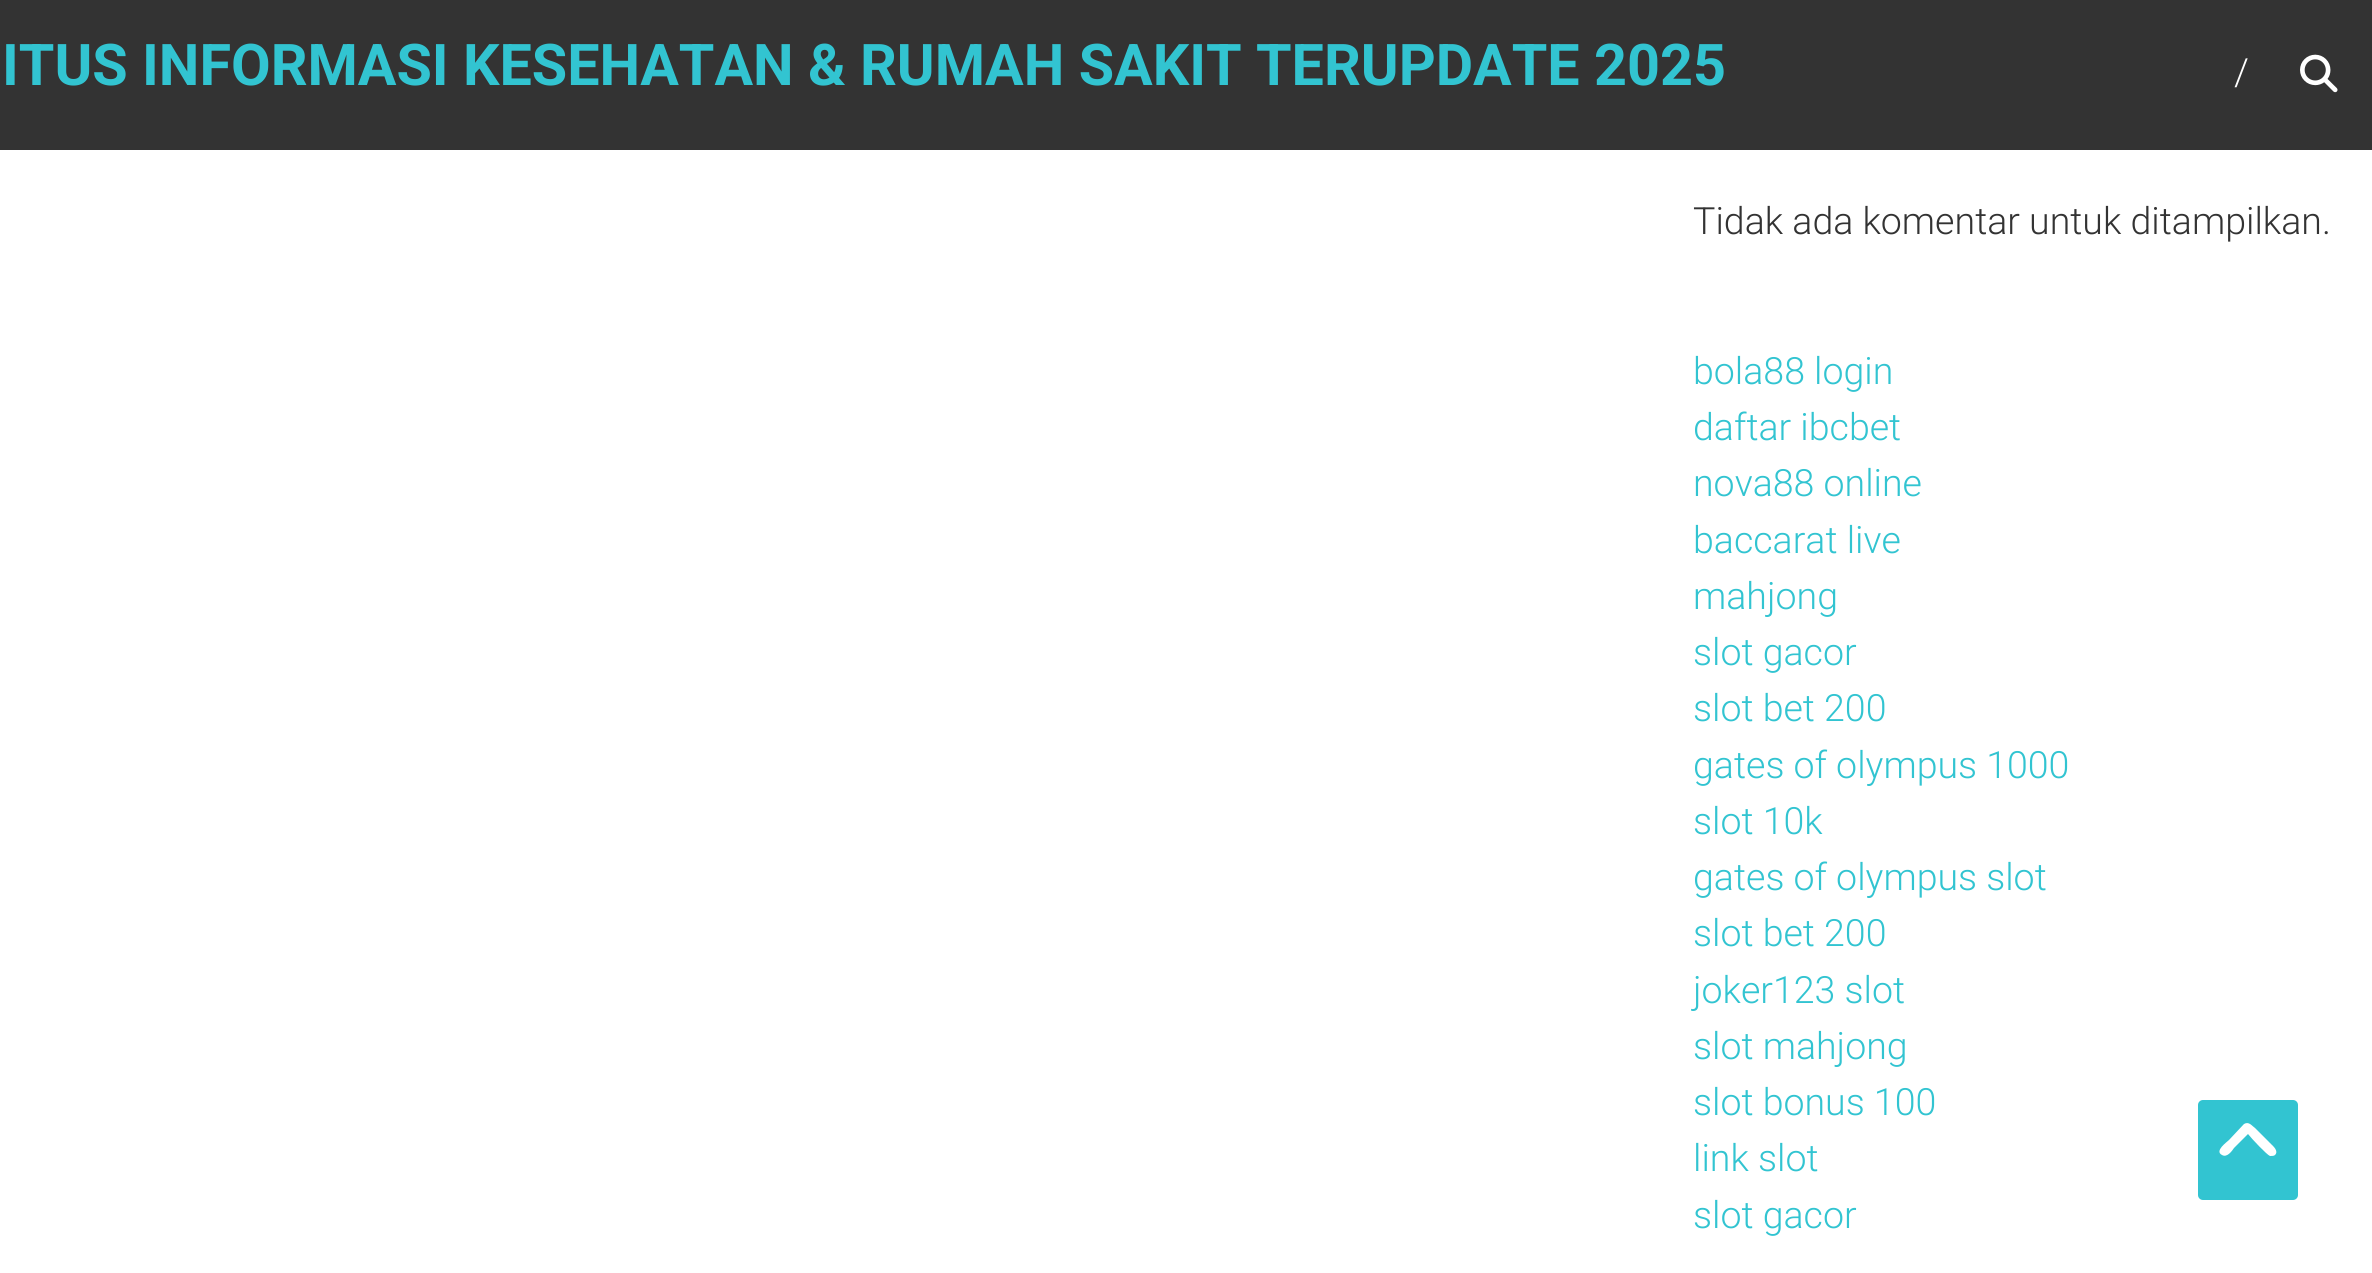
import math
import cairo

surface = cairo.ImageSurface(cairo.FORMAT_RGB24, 2372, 1273)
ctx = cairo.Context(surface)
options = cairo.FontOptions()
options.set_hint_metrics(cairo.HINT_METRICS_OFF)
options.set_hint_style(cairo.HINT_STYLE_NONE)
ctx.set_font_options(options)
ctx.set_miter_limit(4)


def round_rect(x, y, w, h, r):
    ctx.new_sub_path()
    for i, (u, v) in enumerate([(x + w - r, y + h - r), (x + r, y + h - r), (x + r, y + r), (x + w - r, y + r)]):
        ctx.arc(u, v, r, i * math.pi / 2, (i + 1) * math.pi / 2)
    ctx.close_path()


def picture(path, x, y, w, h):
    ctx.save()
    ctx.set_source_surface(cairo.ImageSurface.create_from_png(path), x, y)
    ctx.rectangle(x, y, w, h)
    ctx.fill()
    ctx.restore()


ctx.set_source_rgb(1, 1, 1)
ctx.paint()
ctx.set_source_rgb(0.2, 0.2, 0.2)
ctx.rectangle(0, 0, 2372, 150)
ctx.fill()
ctx.select_font_face("Roboto", cairo.FONT_SLANT_NORMAL, cairo.FONT_WEIGHT_BOLD)
ctx.set_font_size(57.5)
ctx.set_source_rgb(0.196, 0.769, 0.82)
ctx.move_to(2, 85)
ctx.show_text("ITUS INFORMASI KESEHATAN & RUMAH SAKIT TERUPDATE 2025")
ctx.select_font_face("Roboto Light")
ctx.set_font_size(37.5)
ctx.set_source_rgb(1, 1, 1)
ctx.move_to(2234, 85)
ctx.show_text("/")
picture("img1.png", 2300, 54, 38, 39)
ctx.set_source_rgb(0.2, 0.2, 0.2)
ctx.move_to(1693, 234)
ctx.show_text("Tidak ada komentar untuk ditampilkan.")
ctx.set_source_rgb(0.196, 0.769, 0.82)
ctx.move_to(1693, 384)
ctx.show_text("bola88 login")
ctx.move_to(1693, 440)
ctx.show_text("daftar ibcbet")
ctx.move_to(1693, 496)
ctx.show_text("nova88 online")
ctx.move_to(1693, 553)
ctx.show_text("baccarat live")
ctx.move_to(1693, 609)
ctx.show_text("mahjong")
ctx.move_to(1693, 665)
ctx.show_text("slot gacor")
ctx.move_to(1693, 721)
ctx.show_text("slot bet 200")
ctx.move_to(1693, 778)
ctx.show_text("gates of olympus 1000")
ctx.move_to(1693, 834)
ctx.show_text("slot 10k")
ctx.move_to(1693, 890)
ctx.show_text("gates of olympus slot")
ctx.move_to(1693, 946)
ctx.show_text("slot bet 200")
ctx.move_to(1693, 1003)
ctx.show_text("joker123 slot")
ctx.move_to(1693, 1059)
ctx.show_text("slot mahjong")
ctx.move_to(1693, 1115)
ctx.show_text("slot bonus 100")
ctx.move_to(1693, 1171)
ctx.show_text("link slot")
ctx.move_to(1693, 1228)
ctx.show_text("slot gacor")
round_rect(2198, 1100, 100, 100, 5)
ctx.fill()
ctx.set_source_rgb(1, 1, 1)
ctx.new_path()
ctx.move_to(2244, 1124)
ctx.curve_to(2249, 1121, 2252, 1126, 2255, 1128)
ctx.line_to(2271, 1144)
ctx.curve_to(2273, 1146, 2279, 1151, 2275, 1155)
ctx.curve_to(2274, 1156, 2272, 1156, 2270, 1156)
ctx.curve_to(2267, 1155, 2251, 1138, 2248, 1134)
ctx.line_to(2234, 1148)
ctx.curve_to(2232, 1151, 2227, 1158, 2222, 1155)
ctx.curve_to(2214, 1151, 2227, 1142, 2229, 1140)
ctx.close_path()
ctx.fill()
surface.write_to_png("page.png")
